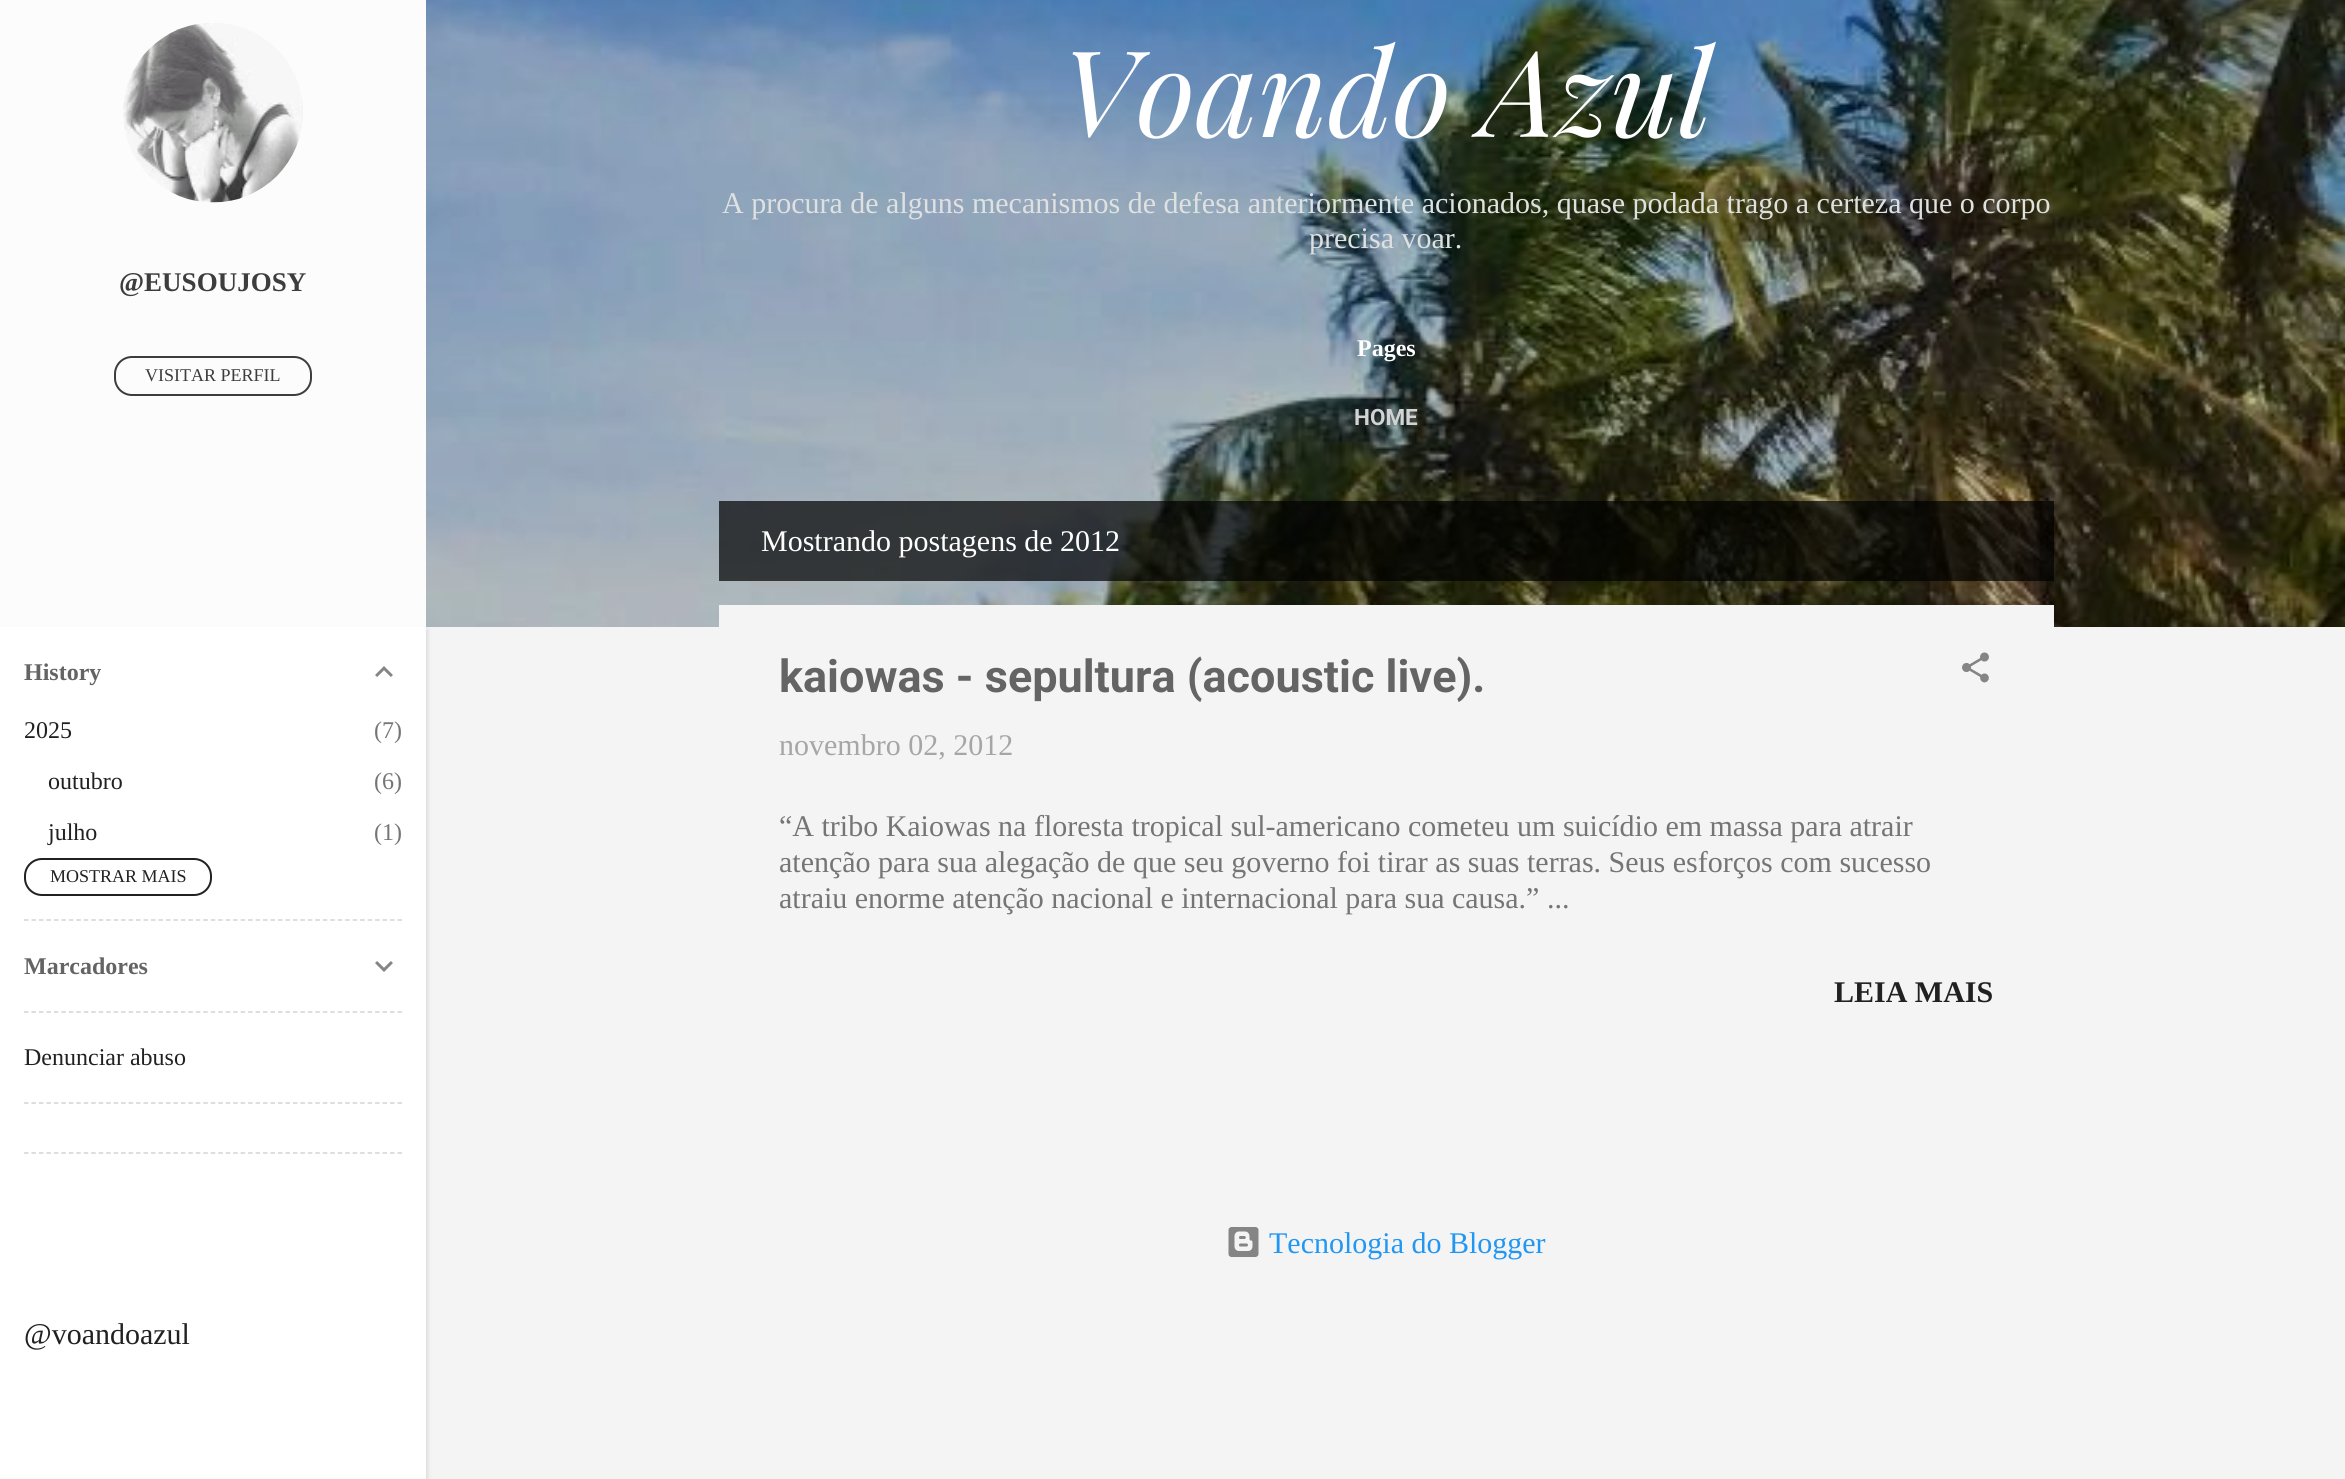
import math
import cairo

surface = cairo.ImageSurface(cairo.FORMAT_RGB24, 2345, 1479)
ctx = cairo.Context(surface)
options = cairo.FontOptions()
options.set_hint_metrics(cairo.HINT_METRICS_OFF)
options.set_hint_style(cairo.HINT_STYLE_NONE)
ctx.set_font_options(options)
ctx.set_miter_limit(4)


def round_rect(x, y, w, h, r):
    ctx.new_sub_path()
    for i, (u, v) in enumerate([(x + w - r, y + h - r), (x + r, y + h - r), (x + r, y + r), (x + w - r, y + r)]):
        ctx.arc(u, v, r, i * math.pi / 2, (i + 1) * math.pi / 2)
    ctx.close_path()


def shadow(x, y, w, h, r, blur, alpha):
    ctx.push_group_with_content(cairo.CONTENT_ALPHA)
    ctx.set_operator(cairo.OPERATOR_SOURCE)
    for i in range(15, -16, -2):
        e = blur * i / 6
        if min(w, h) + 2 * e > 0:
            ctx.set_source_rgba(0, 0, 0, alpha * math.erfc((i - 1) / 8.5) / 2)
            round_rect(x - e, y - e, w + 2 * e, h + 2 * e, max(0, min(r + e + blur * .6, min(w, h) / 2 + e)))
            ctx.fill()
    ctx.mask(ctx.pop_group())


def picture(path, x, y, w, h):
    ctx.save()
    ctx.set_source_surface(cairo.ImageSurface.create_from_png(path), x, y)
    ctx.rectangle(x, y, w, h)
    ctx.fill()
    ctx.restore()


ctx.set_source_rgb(0.957, 0.957, 0.957)
ctx.paint()
picture("img4.png", 426, 0, 1919, 627)
ctx.set_source_rgb(0, 0, 0)
shadow(2, 629, 426, 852, 0, 2, 0.1)
ctx.set_source_rgb(1, 1, 1)
ctx.rectangle(0, 627, 426, 852)
ctx.fill()
ctx.set_source_rgb(0.988, 0.988, 0.988)
ctx.rectangle(0, 0, 426, 627)
ctx.fill()
picture("img1.png", 123, 23, 180, 180)
ctx.select_font_face("Liberation Serif", cairo.FONT_SLANT_NORMAL, cairo.FONT_WEIGHT_BOLD)
ctx.set_font_size(27)
ctx.set_source_rgb(0.239, 0.239, 0.239)
ctx.move_to(119, 291)
ctx.show_text("@EUSOUJOSY")
round_rect(115, 357, 196, 38, 17)
ctx.stroke()
ctx.select_font_face("Liberation Serif")
ctx.set_font_size(18)
ctx.move_to(145, 381)
ctx.show_text("VISITAR PERFIL")
ctx.select_font_face("Liberation Serif", cairo.FONT_SLANT_NORMAL, cairo.FONT_WEIGHT_BOLD)
ctx.set_font_size(24)
ctx.set_source_rgb(0.392, 0.392, 0.392)
ctx.move_to(24, 680)
ctx.show_text("History")
picture("img2.png", 375, 666, 18, 11)
ctx.select_font_face("Liberation Serif")
ctx.set_source_rgb(0.129, 0.129, 0.129)
ctx.move_to(24, 738)
ctx.show_text("2025")
ctx.set_source_rgb(0.459, 0.459, 0.459)
ctx.move_to(374, 738)
ctx.show_text("(7)")
ctx.set_source_rgb(0.129, 0.129, 0.129)
ctx.move_to(48, 789)
ctx.show_text("outubro")
ctx.set_source_rgb(0.459, 0.459, 0.459)
ctx.move_to(374, 789)
ctx.show_text("(6)")
ctx.set_source_rgb(0.129, 0.129, 0.129)
ctx.move_to(48, 840)
ctx.show_text("julho")
ctx.set_source_rgb(0.459, 0.459, 0.459)
ctx.move_to(374, 840)
ctx.show_text("(1)")
round_rect(25, 859, 186, 36, 17)
ctx.set_source_rgb(0.129, 0.129, 0.129)
ctx.stroke()
ctx.set_font_size(18)
ctx.move_to(50, 882)
ctx.show_text("MOSTRAR MAIS")
ctx.new_path()
ctx.move_to(24, 920)
ctx.line_to(402, 920)
ctx.set_source_rgb(0.827, 0.827, 0.827)
ctx.set_line_width(1.5)
ctx.set_dash([4.5, 2.97])
ctx.stroke()
ctx.select_font_face("Liberation Serif", cairo.FONT_SLANT_NORMAL, cairo.FONT_WEIGHT_BOLD)
ctx.set_font_size(24)
ctx.set_source_rgb(0.392, 0.392, 0.392)
ctx.move_to(24, 974)
ctx.show_text("Marcadores")
picture("img3.png", 375, 961, 18, 11)
ctx.new_path()
ctx.move_to(24, 1012)
ctx.line_to(402, 1012)
ctx.set_source_rgb(0.827, 0.827, 0.827)
ctx.stroke()
ctx.select_font_face("Liberation Serif")
ctx.set_source_rgb(0.129, 0.129, 0.129)
ctx.move_to(24, 1065)
ctx.show_text("Denunciar abuso")
ctx.new_path()
ctx.move_to(24, 1103)
ctx.line_to(402, 1103)
ctx.set_source_rgb(0.827, 0.827, 0.827)
ctx.stroke()
ctx.new_path()
ctx.move_to(24, 1153)
ctx.line_to(402, 1153)
ctx.stroke()
ctx.set_font_size(30)
ctx.set_source_rgb(0.129, 0.129, 0.129)
ctx.move_to(24, 1344)
ctx.show_text("@voandoazul")
ctx.select_font_face("Playfair Display", cairo.FONT_SLANT_ITALIC)
ctx.set_font_size(120)
ctx.set_source_rgb(1, 1, 1)
ctx.move_to(1061, 137)
ctx.show_text("Voando Azul")
ctx.select_font_face("Liberation Serif")
ctx.set_font_size(30)
ctx.set_source_rgb(0.875, 0.882, 0.882)
ctx.move_to(722, 213)
ctx.show_text("A procura de alguns mecanismos de defesa anteriormente acionados, quase podada trago a certeza que o corpo")
ctx.move_to(1309, 248)
ctx.show_text("precisa voar.")
ctx.select_font_face("Liberation Serif", cairo.FONT_SLANT_NORMAL, cairo.FONT_WEIGHT_BOLD)
ctx.set_font_size(24)
ctx.set_source_rgb(1, 1, 1)
ctx.move_to(1357, 356)
ctx.show_text("Pages")
ctx.select_font_face("Roboto", cairo.FONT_SLANT_NORMAL, cairo.FONT_WEIGHT_BOLD)
ctx.set_font_size(22.5)
ctx.set_source_rgb(0.827, 0.827, 0.827)
ctx.move_to(1354, 425)
ctx.show_text("HOME")
ctx.set_source_rgba(0, 0, 0, 0.7)
ctx.rectangle(719, 501, 1335, 80)
ctx.fill()
ctx.select_font_face("Liberation Serif")
ctx.set_font_size(30)
ctx.set_source_rgb(1, 1, 1)
ctx.move_to(761, 551)
ctx.show_text("Mostrando postagens de 2012")
ctx.set_source_rgb(0.957, 0.957, 0.957)
ctx.rectangle(719, 605, 1335, 22)
ctx.fill()
ctx.select_font_face("Roboto", cairo.FONT_SLANT_NORMAL, cairo.FONT_WEIGHT_BOLD)
ctx.set_font_size(45)
ctx.set_source_rgb(0.392, 0.392, 0.392)
ctx.move_to(779, 692)
ctx.show_text("kaiowas - sepultura (acoustic live).")
picture("img5.png", 1962, 652, 27, 31)
ctx.select_font_face("Liberation Serif")
ctx.set_font_size(30)
ctx.set_source_rgb(0.651, 0.651, 0.651)
ctx.move_to(779, 755)
ctx.show_text("novembro 02, 2012")
ctx.set_source_rgb(0.459, 0.459, 0.459)
ctx.move_to(779, 836)
ctx.show_text("“A tribo Kaiowas na floresta tropical sul-americano cometeu um suicídio em massa para atrair")
ctx.move_to(779, 872)
ctx.show_text("atenção para sua alegação de que seu governo foi tirar as suas terras. Seus esforços com sucesso")
ctx.move_to(779, 908)
ctx.show_text("atraiu enorme atenção nacional e internacional para sua causa.” ...")
ctx.select_font_face("Liberation Serif", cairo.FONT_SLANT_NORMAL, cairo.FONT_WEIGHT_BOLD)
ctx.set_source_rgb(0.129, 0.129, 0.129)
ctx.move_to(1834, 1002)
ctx.show_text("LEIA MAIS")
picture("img6.png", 1228, 1227, 31, 30)
ctx.select_font_face("Liberation Serif")
ctx.set_source_rgb(0.129, 0.588, 0.953)
ctx.move_to(1269, 1253)
ctx.show_text("Tecnologia do Blogger")
surface.write_to_png("page.png")
